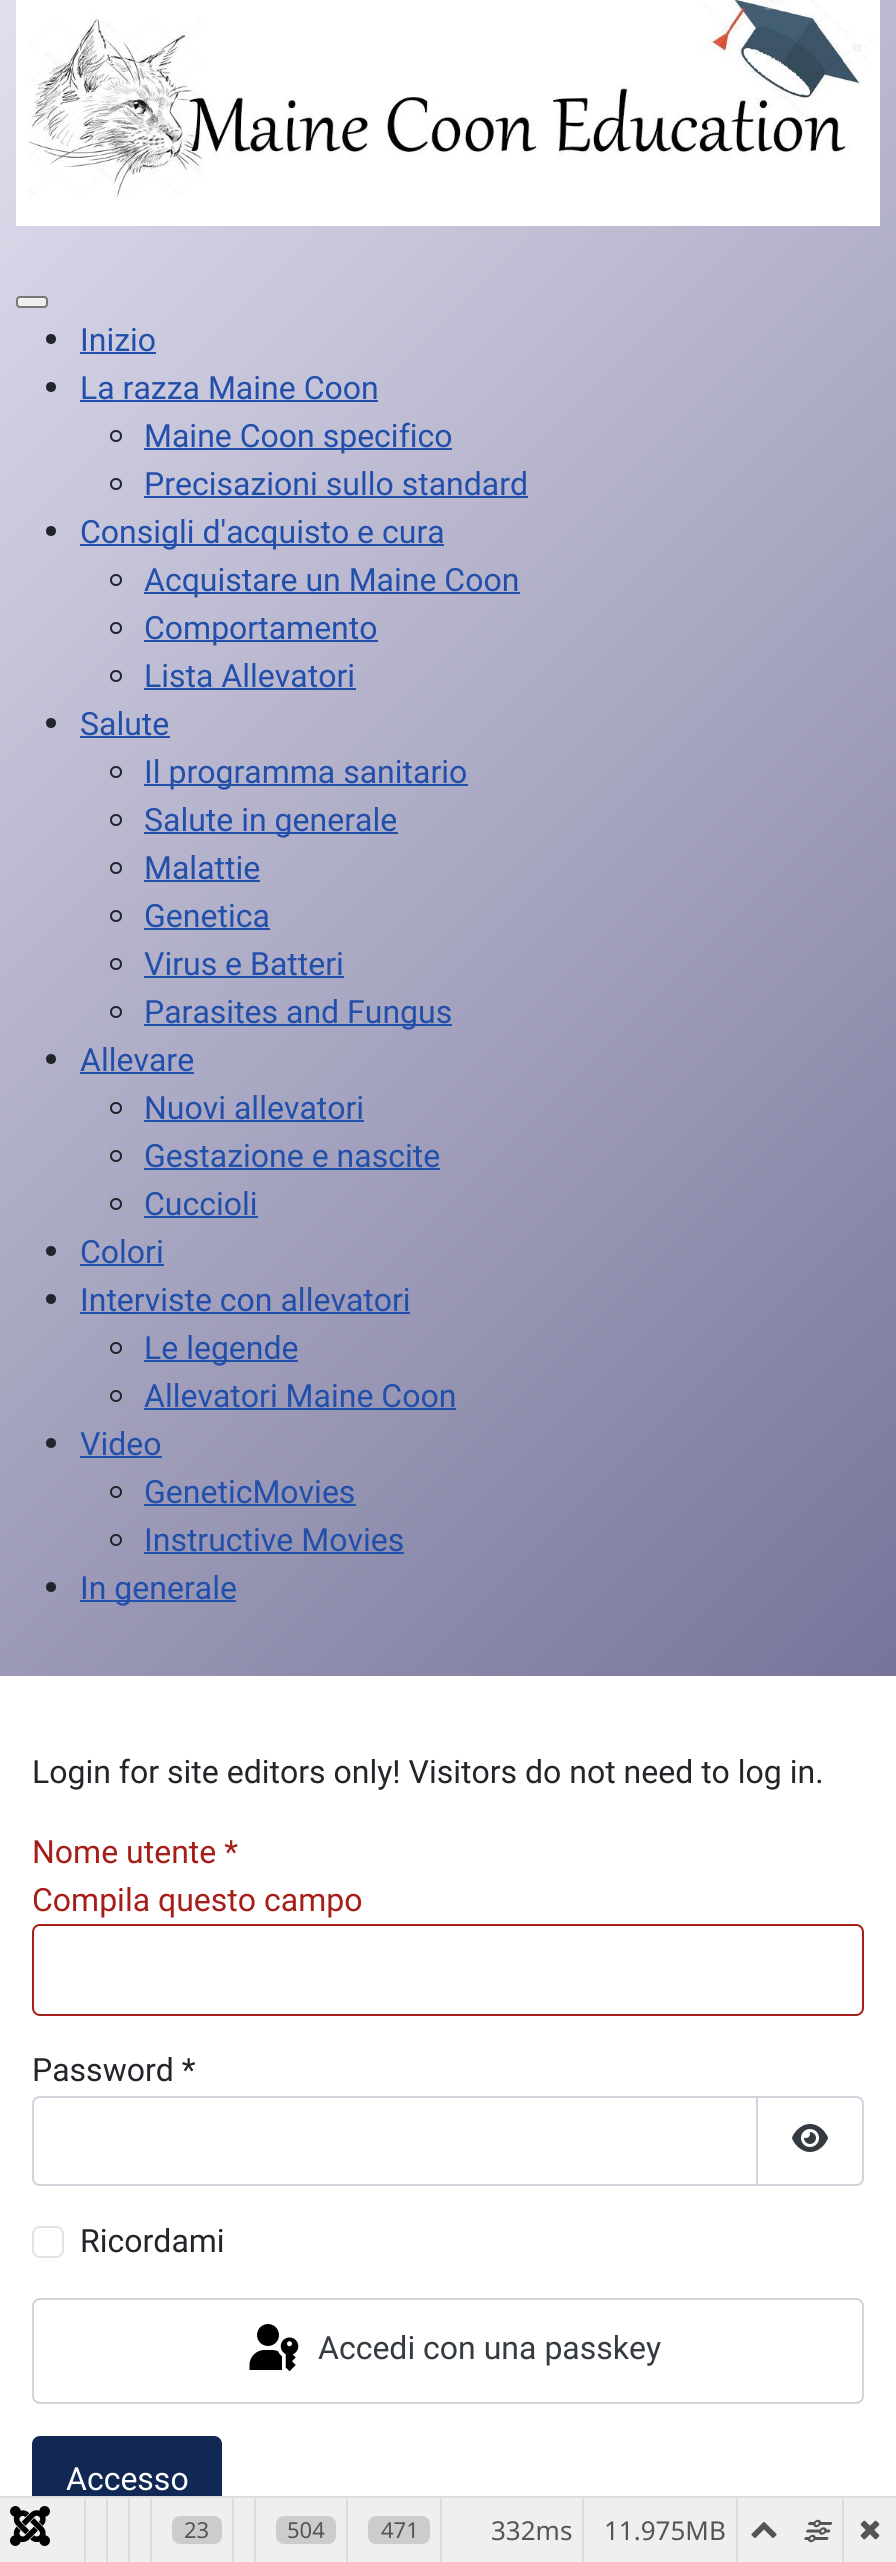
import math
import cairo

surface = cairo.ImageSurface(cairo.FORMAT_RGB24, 896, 2562)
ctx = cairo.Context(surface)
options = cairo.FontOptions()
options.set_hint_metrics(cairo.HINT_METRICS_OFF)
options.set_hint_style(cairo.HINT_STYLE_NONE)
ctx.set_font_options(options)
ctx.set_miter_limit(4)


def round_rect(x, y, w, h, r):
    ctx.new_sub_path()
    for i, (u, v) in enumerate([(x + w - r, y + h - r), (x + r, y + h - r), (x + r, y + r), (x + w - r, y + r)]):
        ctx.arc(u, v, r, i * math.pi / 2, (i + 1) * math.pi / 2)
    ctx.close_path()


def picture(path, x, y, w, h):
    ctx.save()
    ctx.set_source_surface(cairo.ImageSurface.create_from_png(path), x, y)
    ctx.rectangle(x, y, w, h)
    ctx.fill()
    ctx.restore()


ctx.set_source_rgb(1, 1, 1)
ctx.paint()
gradient = cairo.LinearGradient(-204, 168, 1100, 1472)
gradient.add_color_stop_rgba(0, 0.886, 0.882, 0.941, 1)
gradient.add_color_stop_rgba(1, 0.463, 0.455, 0.6, 1)
ctx.set_source(gradient)
ctx.rectangle(0, 0, 896, 1676)
ctx.fill()
picture("img1.png", 16, 0, 864, 226)
ctx.set_source_rgb(0.937, 0.937, 0.937)
round_rect(17, 297, 30, 10, 3)
ctx.fill_preserve()
ctx.set_source_rgb(0.463, 0.463, 0.463)
ctx.stroke()
ctx.set_source_rgb(0.133, 0.149, 0.165)
ctx.arc(51, 339, 5, 0, 2 * math.pi)
ctx.fill()
ctx.select_font_face("Roboto")
ctx.set_font_size(32)
ctx.set_source_rgb(0.133, 0.31, 0.667)
ctx.move_to(80, 351)
ctx.show_text("Inizio")
ctx.rectangle(80, 352, 76, 2)
ctx.fill()
ctx.set_source_rgb(0.133, 0.149, 0.165)
ctx.arc(51, 387, 5, 0, 2 * math.pi)
ctx.fill()
ctx.set_source_rgb(0.133, 0.31, 0.667)
ctx.move_to(80, 399)
ctx.show_text("La razza Maine Coon")
ctx.rectangle(80, 400, 298, 2)
ctx.fill()
ctx.arc(116, 436, 5, 0, 2 * math.pi)
ctx.set_source_rgb(0.133, 0.149, 0.165)
ctx.stroke()
ctx.set_source_rgb(0.133, 0.31, 0.667)
ctx.rectangle(144, 448, 308, 2)
ctx.fill()
ctx.move_to(144, 447)
ctx.show_text("Maine Coon specifico")
ctx.new_path()
ctx.arc(116, 484, 5, 0, 2 * math.pi)
ctx.set_source_rgb(0.133, 0.149, 0.165)
ctx.stroke()
ctx.set_source_rgb(0.133, 0.31, 0.667)
ctx.move_to(144, 495)
ctx.show_text("Precisazioni sullo standard")
ctx.rectangle(144, 496, 384, 2)
ctx.fill()
ctx.set_source_rgb(0.133, 0.149, 0.165)
ctx.arc(51, 531, 5, 0, 2 * math.pi)
ctx.fill()
ctx.set_source_rgb(0.133, 0.31, 0.667)
ctx.rectangle(80, 544, 364, 2)
ctx.fill()
ctx.move_to(80, 543)
ctx.show_text("Consigli d'acquisto e cura")
ctx.new_path()
ctx.arc(116, 580, 5, 0, 2 * math.pi)
ctx.set_source_rgb(0.133, 0.149, 0.165)
ctx.stroke()
ctx.set_source_rgb(0.133, 0.31, 0.667)
ctx.rectangle(144, 592, 376, 2)
ctx.fill()
ctx.move_to(144, 591)
ctx.show_text("Acquistare un Maine Coon")
ctx.new_path()
ctx.arc(116, 628, 5, 0, 2 * math.pi)
ctx.set_source_rgb(0.133, 0.149, 0.165)
ctx.stroke()
ctx.set_source_rgb(0.133, 0.31, 0.667)
ctx.rectangle(144, 640, 234, 2)
ctx.fill()
ctx.move_to(144, 639)
ctx.show_text("Comportamento")
ctx.new_path()
ctx.arc(116, 676, 5, 0, 2 * math.pi)
ctx.set_source_rgb(0.133, 0.149, 0.165)
ctx.stroke()
ctx.set_source_rgb(0.133, 0.31, 0.667)
ctx.move_to(144, 687)
ctx.show_text("Lista Allevatori")
ctx.rectangle(144, 688, 212, 2)
ctx.fill()
ctx.set_source_rgb(0.133, 0.149, 0.165)
ctx.arc(51, 723, 5, 0, 2 * math.pi)
ctx.fill()
ctx.set_source_rgb(0.133, 0.31, 0.667)
ctx.move_to(80, 735)
ctx.show_text("Salute")
ctx.rectangle(80, 736, 90, 2)
ctx.fill()
ctx.arc(116, 772, 5, 0, 2 * math.pi)
ctx.set_source_rgb(0.133, 0.149, 0.165)
ctx.stroke()
ctx.set_source_rgb(0.133, 0.31, 0.667)
ctx.rectangle(144, 784, 324, 2)
ctx.fill()
ctx.move_to(144, 783)
ctx.show_text("Il programma sanitario")
ctx.new_path()
ctx.arc(116, 820, 5, 0, 2 * math.pi)
ctx.set_source_rgb(0.133, 0.149, 0.165)
ctx.stroke()
ctx.set_source_rgb(0.133, 0.31, 0.667)
ctx.rectangle(144, 832, 254, 2)
ctx.fill()
ctx.move_to(144, 831)
ctx.show_text("Salute in generale")
ctx.new_path()
ctx.arc(116, 868, 5, 0, 2 * math.pi)
ctx.set_source_rgb(0.133, 0.149, 0.165)
ctx.stroke()
ctx.set_source_rgb(0.133, 0.31, 0.667)
ctx.move_to(144, 879)
ctx.show_text("Malattie")
ctx.rectangle(144, 880, 116, 2)
ctx.fill()
ctx.arc(116, 916, 5, 0, 2 * math.pi)
ctx.set_source_rgb(0.133, 0.149, 0.165)
ctx.stroke()
ctx.set_source_rgb(0.133, 0.31, 0.667)
ctx.move_to(144, 927)
ctx.show_text("Genetica")
ctx.rectangle(144, 928, 126, 2)
ctx.fill()
ctx.arc(116, 964, 5, 0, 2 * math.pi)
ctx.set_source_rgb(0.133, 0.149, 0.165)
ctx.stroke()
ctx.set_source_rgb(0.133, 0.31, 0.667)
ctx.move_to(144, 975)
ctx.show_text("Virus e Batteri")
ctx.rectangle(144, 976, 200, 2)
ctx.fill()
ctx.arc(116, 1012, 5, 0, 2 * math.pi)
ctx.set_source_rgb(0.133, 0.149, 0.165)
ctx.stroke()
ctx.set_source_rgb(0.133, 0.31, 0.667)
ctx.rectangle(144, 1024, 308, 2)
ctx.fill()
ctx.move_to(144, 1023)
ctx.show_text("Parasites and Fungus")
ctx.set_source_rgb(0.133, 0.149, 0.165)
ctx.new_path()
ctx.arc(51, 1059, 5, 0, 2 * math.pi)
ctx.fill()
ctx.set_source_rgb(0.133, 0.31, 0.667)
ctx.move_to(80, 1071)
ctx.show_text("Allevare")
ctx.rectangle(80, 1072, 114, 2)
ctx.fill()
ctx.arc(116, 1108, 5, 0, 2 * math.pi)
ctx.set_source_rgb(0.133, 0.149, 0.165)
ctx.stroke()
ctx.set_source_rgb(0.133, 0.31, 0.667)
ctx.move_to(144, 1119)
ctx.show_text("Nuovi allevatori")
ctx.rectangle(144, 1120, 220, 2)
ctx.fill()
ctx.arc(116, 1156, 5, 0, 2 * math.pi)
ctx.set_source_rgb(0.133, 0.149, 0.165)
ctx.stroke()
ctx.set_source_rgb(0.133, 0.31, 0.667)
ctx.move_to(144, 1167)
ctx.show_text("Gestazione e nascite")
ctx.rectangle(144, 1168, 296, 2)
ctx.fill()
ctx.arc(116, 1204, 5, 0, 2 * math.pi)
ctx.set_source_rgb(0.133, 0.149, 0.165)
ctx.stroke()
ctx.set_source_rgb(0.133, 0.31, 0.667)
ctx.move_to(144, 1215)
ctx.show_text("Cuccioli")
ctx.rectangle(144, 1216, 114, 2)
ctx.fill()
ctx.set_source_rgb(0.133, 0.149, 0.165)
ctx.arc(51, 1251, 5, 0, 2 * math.pi)
ctx.fill()
ctx.set_source_rgb(0.133, 0.31, 0.667)
ctx.move_to(80, 1263)
ctx.show_text("Colori")
ctx.rectangle(80, 1264, 84, 2)
ctx.fill()
ctx.set_source_rgb(0.133, 0.149, 0.165)
ctx.arc(51, 1299, 5, 0, 2 * math.pi)
ctx.fill()
ctx.set_source_rgb(0.133, 0.31, 0.667)
ctx.move_to(80, 1311)
ctx.show_text("Interviste con allevatori")
ctx.rectangle(80, 1312, 330, 2)
ctx.fill()
ctx.arc(116, 1348, 5, 0, 2 * math.pi)
ctx.set_source_rgb(0.133, 0.149, 0.165)
ctx.stroke()
ctx.set_source_rgb(0.133, 0.31, 0.667)
ctx.rectangle(144, 1360, 154, 2)
ctx.fill()
ctx.move_to(144, 1359)
ctx.show_text("Le legende")
ctx.new_path()
ctx.arc(116, 1396, 5, 0, 2 * math.pi)
ctx.set_source_rgb(0.133, 0.149, 0.165)
ctx.stroke()
ctx.set_source_rgb(0.133, 0.31, 0.667)
ctx.move_to(144, 1407)
ctx.show_text("Allevatori Maine Coon")
ctx.rectangle(144, 1408, 312, 2)
ctx.fill()
ctx.set_source_rgb(0.133, 0.149, 0.165)
ctx.arc(51, 1443, 5, 0, 2 * math.pi)
ctx.fill()
ctx.set_source_rgb(0.133, 0.31, 0.667)
ctx.move_to(80, 1455)
ctx.show_text("Video")
ctx.rectangle(80, 1456, 82, 2)
ctx.fill()
ctx.arc(116, 1492, 5, 0, 2 * math.pi)
ctx.set_source_rgb(0.133, 0.149, 0.165)
ctx.stroke()
ctx.set_source_rgb(0.133, 0.31, 0.667)
ctx.move_to(144, 1503)
ctx.show_text("GeneticMovies")
ctx.rectangle(144, 1504, 212, 2)
ctx.fill()
ctx.arc(116, 1540, 5, 0, 2 * math.pi)
ctx.set_source_rgb(0.133, 0.149, 0.165)
ctx.stroke()
ctx.set_source_rgb(0.133, 0.31, 0.667)
ctx.move_to(144, 1551)
ctx.show_text("Instructive Movies")
ctx.rectangle(144, 1552, 260, 2)
ctx.fill()
ctx.set_source_rgb(0.133, 0.149, 0.165)
ctx.arc(51, 1587, 5, 0, 2 * math.pi)
ctx.fill()
ctx.set_source_rgb(0.133, 0.31, 0.667)
ctx.rectangle(80, 1600, 156, 2)
ctx.fill()
ctx.move_to(80, 1599)
ctx.show_text("In generale")
ctx.set_source_rgb(0.133, 0.149, 0.165)
ctx.move_to(32, 1783)
ctx.show_text("Login for site editors only! Visitors do not need to log in.")
ctx.set_source_rgb(0.647, 0.122, 0.094)
ctx.move_to(32, 1863)
ctx.show_text("Nome utente *")
ctx.move_to(32, 1911)
ctx.show_text("Compila questo campo")
round_rect(33, 1925, 830, 90, 7)
ctx.stroke()
ctx.set_source_rgb(0.133, 0.149, 0.165)
ctx.move_to(32, 2081)
ctx.show_text("Password *")
ctx.new_path()
ctx.move_to(40, 2097)
ctx.line_to(757, 2097)
ctx.line_to(757, 2185)
ctx.line_to(40, 2185)
ctx.curve_to(36, 2185, 33, 2182, 33, 2178)
ctx.line_to(33, 2104)
ctx.curve_to(33, 2100, 36, 2097, 40, 2097)
ctx.close_path()
ctx.set_source_rgb(0.808, 0.831, 0.855)
ctx.stroke()
ctx.set_source_rgb(1, 1, 1)
ctx.new_path()
ctx.move_to(757, 2097)
ctx.line_to(856, 2097)
ctx.curve_to(860, 2097, 863, 2100, 863, 2104)
ctx.line_to(863, 2178)
ctx.curve_to(863, 2182, 860, 2185, 856, 2185)
ctx.line_to(757, 2185)
ctx.close_path()
ctx.fill_preserve()
ctx.set_source_rgb(0.808, 0.831, 0.855)
ctx.stroke()
picture("img2.png", 792, 2124, 36, 28)
round_rect(33, 2227, 30, 30, 7)
ctx.set_source_rgb(0.875, 0.89, 0.906)
ctx.stroke()
ctx.set_source_rgb(0.133, 0.149, 0.165)
ctx.move_to(80, 2252)
ctx.show_text("Ricordami")
round_rect(33, 2299, 830, 104, 7)
ctx.set_source_rgb(0.808, 0.831, 0.855)
ctx.stroke()
picture("img3.png", 249, 2324, 50, 48)
ctx.set_source_rgb(0.208, 0.231, 0.255)
ctx.move_to(318, 2359)
ctx.show_text("Accedi con una passkey")
ctx.set_source_rgb(0.067, 0.157, 0.333)
round_rect(33, 2437, 188, 88, 7)
ctx.fill_preserve()
ctx.stroke()
ctx.set_source_rgb(1, 1, 1)
ctx.move_to(66, 2490)
ctx.show_text("Accesso")
ctx.set_source_rgb(0.867, 0.867, 0.867)
ctx.rectangle(0, 2496, 896, 2)
ctx.fill()
ctx.set_source_rgb(0.937, 0.937, 0.937)
ctx.rectangle(0, 2498, 896, 64)
ctx.fill()
picture("img4.png", 10, 2506, 40, 40)
ctx.set_source_rgb(0.867, 0.867, 0.867)
ctx.rectangle(84, 2498, 2, 64)
ctx.fill()
ctx.rectangle(106, 2498, 2, 64)
ctx.fill()
ctx.rectangle(128, 2498, 2, 64)
ctx.fill()
ctx.rectangle(150, 2498, 2, 64)
ctx.fill()
ctx.rectangle(232, 2498, 2, 64)
ctx.fill()
ctx.set_source_rgb(0.8, 0.8, 0.8)
round_rect(172, 2516, 50, 28, 8)
ctx.fill()
ctx.select_font_face("Noto Sans")
ctx.set_font_size(22)
ctx.set_source_rgb(0.333, 0.333, 0.333)
ctx.move_to(184, 2538)
ctx.show_text("23")
ctx.set_source_rgb(0.867, 0.867, 0.867)
ctx.rectangle(254, 2498, 2, 64)
ctx.fill()
ctx.rectangle(346, 2498, 2, 64)
ctx.fill()
ctx.set_source_rgb(0.8, 0.8, 0.8)
round_rect(276, 2516, 60, 28, 8)
ctx.fill()
ctx.set_source_rgb(0.333, 0.333, 0.333)
ctx.move_to(287, 2538)
ctx.show_text("504")
ctx.set_source_rgb(0.867, 0.867, 0.867)
ctx.rectangle(440, 2498, 2, 64)
ctx.fill()
ctx.set_source_rgb(0.8, 0.8, 0.8)
round_rect(368, 2516, 62, 28, 8)
ctx.fill()
ctx.set_source_rgb(0.333, 0.333, 0.333)
ctx.move_to(381, 2538)
ctx.show_text("471")
ctx.set_source_rgb(0.867, 0.867, 0.867)
ctx.rectangle(582, 2498, 2, 64)
ctx.fill()
ctx.set_font_size(26)
ctx.set_source_rgb(0.333, 0.333, 0.333)
ctx.move_to(491, 2540)
ctx.show_text("332ms")
ctx.set_source_rgb(0.867, 0.867, 0.867)
ctx.rectangle(736, 2498, 2, 64)
ctx.fill()
ctx.set_source_rgb(0.333, 0.333, 0.333)
ctx.move_to(604, 2540)
ctx.show_text("11.975MB")
picture("img5.png", 751, 2522, 26, 16)
ctx.set_source_rgb(0.867, 0.867, 0.867)
ctx.rectangle(842, 2498, 2, 64)
ctx.fill()
picture("img6.png", 804, 2519, 29, 24)
picture("img7.png", 860, 2520, 20, 20)
surface.write_to_png("page.png")
